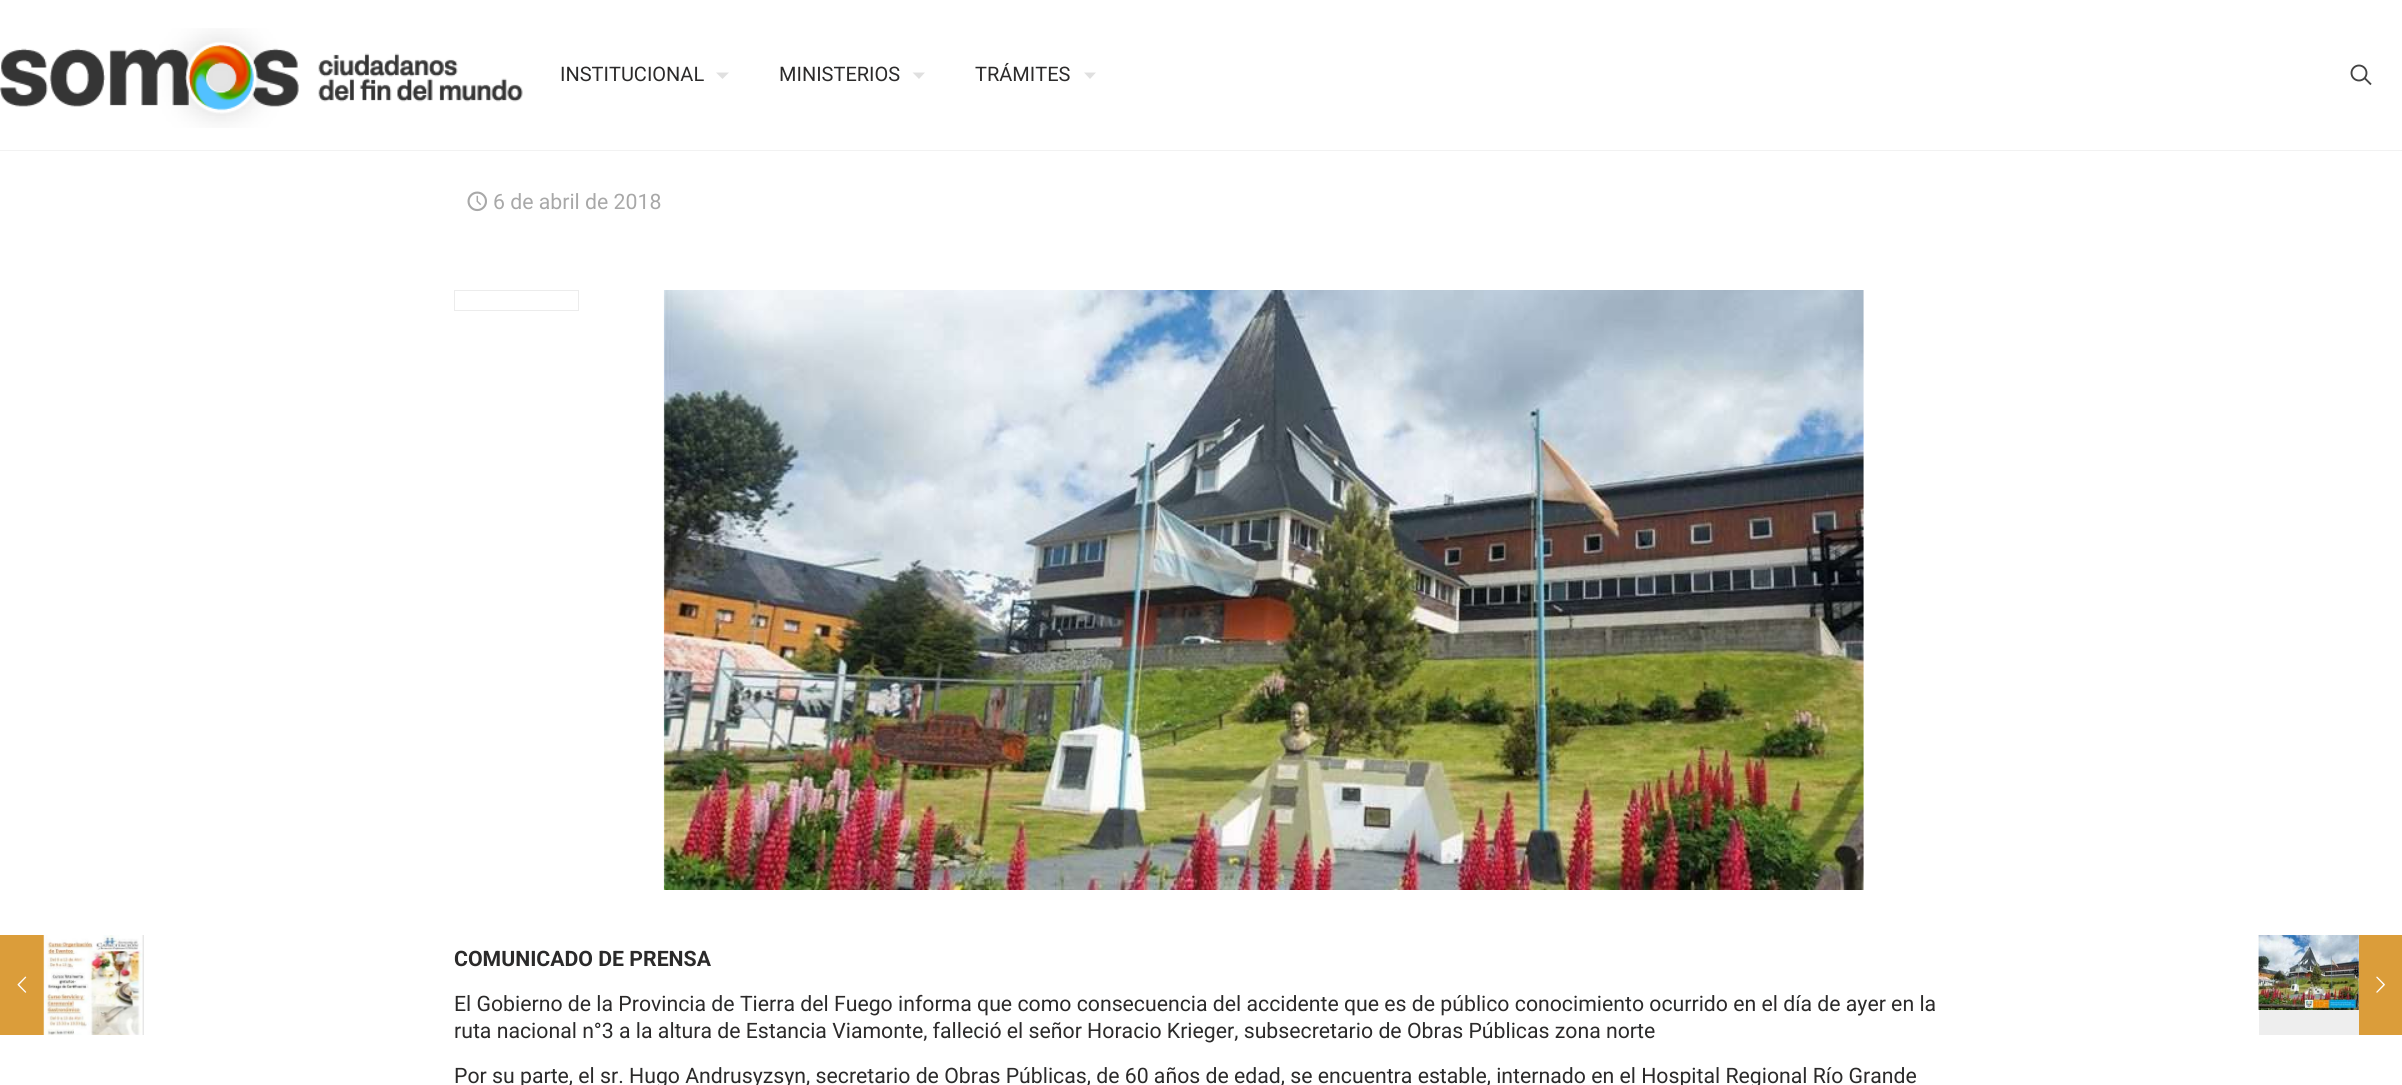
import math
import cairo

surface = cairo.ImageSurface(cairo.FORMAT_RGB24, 2402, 1085)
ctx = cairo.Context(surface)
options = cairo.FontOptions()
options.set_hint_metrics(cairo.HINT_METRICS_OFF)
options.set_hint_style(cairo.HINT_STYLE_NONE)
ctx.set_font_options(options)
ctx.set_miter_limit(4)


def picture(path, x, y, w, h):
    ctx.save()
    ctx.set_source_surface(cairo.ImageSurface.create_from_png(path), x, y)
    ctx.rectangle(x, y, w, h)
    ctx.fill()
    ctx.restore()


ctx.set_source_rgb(1, 1, 1)
ctx.paint()
ctx.set_source_rgb(0.859, 0.616, 0.227)
ctx.rectangle(0, 935, 44, 100)
ctx.fill()
picture("img1.png", 17, 976, 10, 17)
ctx.set_source_rgb(0.933, 0.933, 0.933)
ctx.rectangle(143, 935, 1, 100)
ctx.fill()
picture("img2.png", 43, 935, 101, 100)
ctx.set_source_rgb(0.949, 0.949, 0.949)
ctx.rectangle(0, 150, 2402, 1)
ctx.fill()
picture("img3.png", 0, 28, 523, 100)
ctx.select_font_face("Roboto")
ctx.set_font_size(20)
ctx.set_source_rgb(0.169, 0.165, 0.165)
ctx.move_to(560, 81)
ctx.show_text("INSTITUCIONAL")
ctx.set_source_rgb(0.878, 0.878, 0.878)
ctx.new_path()
ctx.move_to(716, 72.5)
ctx.line_to(729, 72.5)
ctx.line_to(722.5, 79)
ctx.close_path()
ctx.fill()
ctx.set_source_rgb(0.169, 0.165, 0.165)
ctx.move_to(779, 81)
ctx.show_text("MINISTERIOS")
ctx.set_source_rgb(0.878, 0.878, 0.878)
ctx.new_path()
ctx.move_to(912.5, 72.5)
ctx.line_to(925, 72.5)
ctx.line_to(919, 79)
ctx.close_path()
ctx.fill()
ctx.set_source_rgb(0.169, 0.165, 0.165)
ctx.move_to(975, 81)
ctx.show_text("TRÁMITES")
ctx.set_source_rgb(0.878, 0.878, 0.878)
ctx.new_path()
ctx.move_to(1084, 72.5)
ctx.line_to(1096, 72.5)
ctx.line_to(1090, 79)
ctx.close_path()
ctx.fill()
ctx.arc(2359, 73, 7.5, 0, 2 * math.pi)
ctx.set_source_rgb(0.267, 0.267, 0.267)
ctx.set_line_width(1.9)
ctx.stroke()
ctx.new_path()
ctx.move_to(2364.5, 78)
ctx.line_to(2371, 84.5)
ctx.stroke()
picture("img4.png", 467, 191, 20, 21)
ctx.set_font_size(21.25)
ctx.set_source_rgb(0.659, 0.659, 0.659)
ctx.move_to(493, 209)
ctx.show_text("6 de abril de 2018")
ctx.rectangle(454.5, 290.5, 124, 20)
ctx.set_source_rgb(0.922, 0.922, 0.922)
ctx.set_line_width(1)
ctx.stroke()
picture("img5.png", 663, 290, 1201, 600)
ctx.select_font_face("Roboto", cairo.FONT_SLANT_NORMAL, cairo.FONT_WEIGHT_BOLD)
ctx.set_source_rgb(0.169, 0.165, 0.165)
ctx.move_to(454, 966)
ctx.show_text("COMUNICADO DE PRENSA")
ctx.select_font_face("Roboto")
ctx.move_to(454, 1011)
ctx.show_text("El Gobierno de la Provincia de Tierra del Fuego informa que como consecuencia del accidente que es de público conocimiento ocurrido en el día de ayer en la")
ctx.move_to(454, 1038)
ctx.show_text("ruta nacional n°3 a la altura de Estancia Viamonte, falleció el señor Horacio Krieger, subsecretario de Obras Públicas zona norte")
ctx.move_to(454, 1083)
ctx.show_text("Por su parte, el sr. Hugo Andrusyzsyn, secretario de Obras Públicas, de 60 años de edad, se encuentra estable, internado en el Hospital Regional Río Grande")
picture("img6.png", 2258, 935, 1, 75)
ctx.set_source_rgb(0.933, 0.933, 0.933)
ctx.rectangle(2259, 935, 100, 100)
ctx.fill()
picture("img7.png", 2258, 935, 101, 75)
ctx.set_source_rgb(0.859, 0.616, 0.227)
ctx.rectangle(2359, 935, 43, 100)
ctx.fill()
picture("img8.png", 2376, 976, 9, 17)
surface.write_to_png("page.png")
